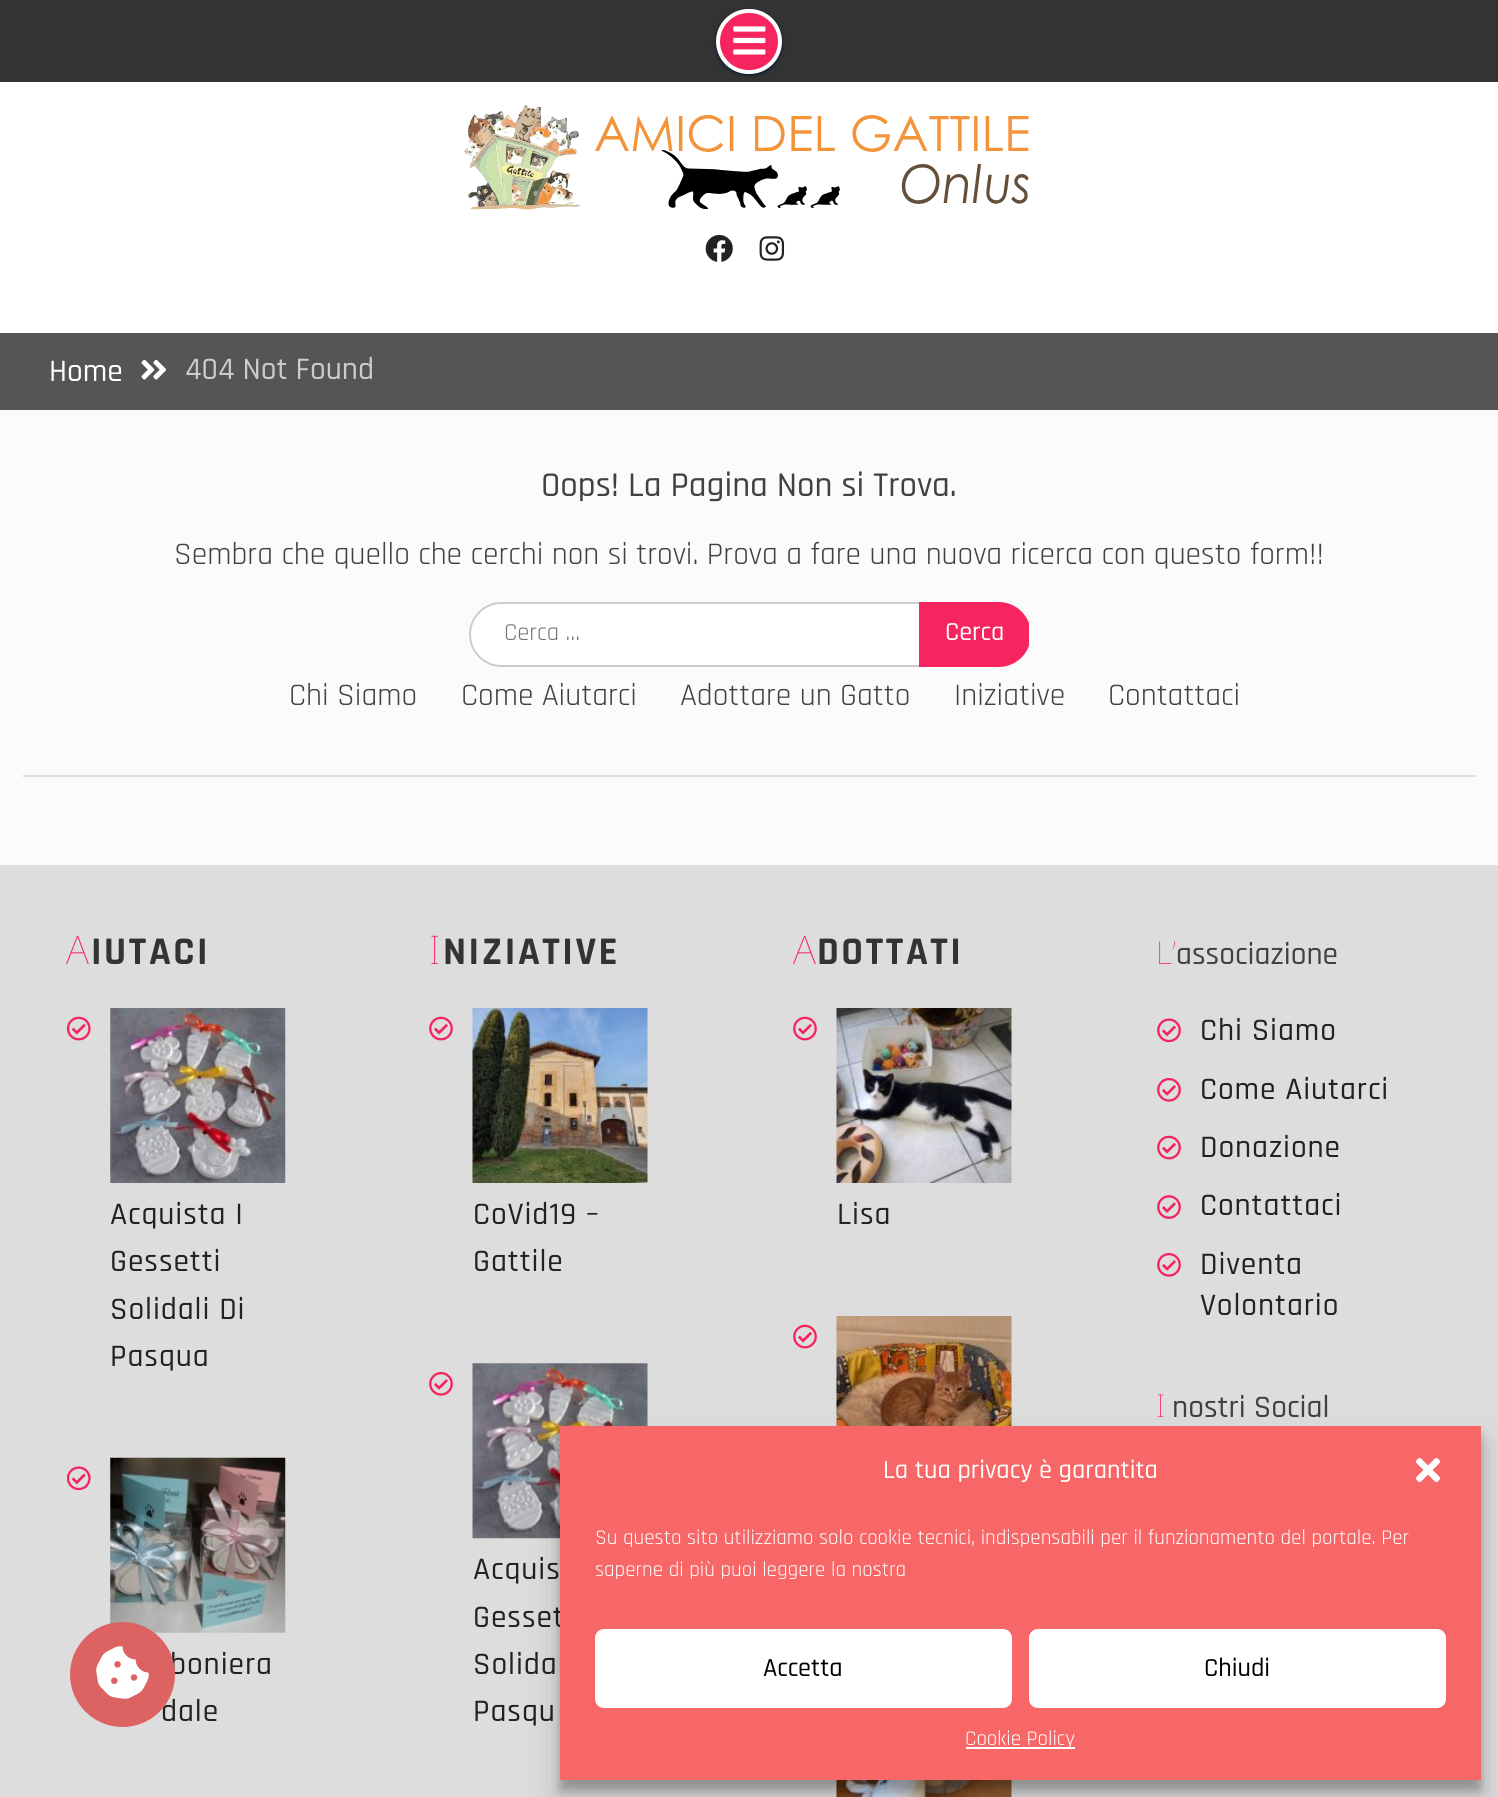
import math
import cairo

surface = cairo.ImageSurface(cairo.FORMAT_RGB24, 1498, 1797)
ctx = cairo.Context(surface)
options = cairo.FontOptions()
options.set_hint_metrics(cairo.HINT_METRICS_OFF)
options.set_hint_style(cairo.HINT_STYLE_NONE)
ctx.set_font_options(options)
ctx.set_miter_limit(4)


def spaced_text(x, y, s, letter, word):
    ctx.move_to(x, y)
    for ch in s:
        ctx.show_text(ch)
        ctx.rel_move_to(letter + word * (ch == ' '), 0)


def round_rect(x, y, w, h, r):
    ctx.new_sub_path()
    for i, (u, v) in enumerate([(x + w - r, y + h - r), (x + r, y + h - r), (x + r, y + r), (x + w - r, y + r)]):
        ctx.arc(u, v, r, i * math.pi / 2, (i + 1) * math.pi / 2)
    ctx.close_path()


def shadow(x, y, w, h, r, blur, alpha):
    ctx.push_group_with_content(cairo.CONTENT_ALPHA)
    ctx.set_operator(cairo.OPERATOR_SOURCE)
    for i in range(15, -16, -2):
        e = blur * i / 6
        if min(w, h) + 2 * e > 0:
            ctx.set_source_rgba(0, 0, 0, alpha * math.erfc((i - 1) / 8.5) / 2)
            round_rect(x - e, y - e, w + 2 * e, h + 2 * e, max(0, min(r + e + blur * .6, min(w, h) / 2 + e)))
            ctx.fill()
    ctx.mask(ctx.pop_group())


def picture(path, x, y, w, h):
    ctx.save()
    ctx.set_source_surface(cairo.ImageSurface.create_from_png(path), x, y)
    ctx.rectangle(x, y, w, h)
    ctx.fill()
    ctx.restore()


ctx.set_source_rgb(0.984, 0.984, 0.984)
ctx.paint()
ctx.set_source_rgb(0.2, 0.2, 0.2)
ctx.rectangle(0, 0, 1498, 82)
ctx.fill()
ctx.set_source_rgb(0, 0.094, 0.216)
shadow(716, 11, 66, 64, 32, 2, 1)
ctx.set_source_rgb(0.961, 0.141, 0.373)
round_rect(718, 11, 62, 61, 30.5)
ctx.fill_preserve()
ctx.set_source_rgb(1, 1, 0.996)
ctx.set_line_width(4)
ctx.stroke()
picture("img1.png", 733, 26, 33, 29)
ctx.set_source_rgb(1, 1, 1)
ctx.rectangle(0, 82, 1498, 251)
ctx.fill()
picture("img2.png", 464, 105, 565, 105)
picture("img3.png", 705, 234, 28, 28)
picture("img4.png", 759, 236, 26, 25)
ctx.set_source_rgb(0.333, 0.333, 0.333)
ctx.rectangle(0, 333, 1498, 77)
ctx.fill()
ctx.select_font_face("Rajdhani Medium")
ctx.set_font_size(31.5)
ctx.set_source_rgb(1, 1, 1)
ctx.move_to(49, 381)
ctx.show_text("Home")
picture("img5.png", 141, 359, 25, 21)
ctx.set_source_rgb(0.8, 0.8, 0.8)
ctx.move_to(185, 379)
ctx.show_text("404 Not Found")
ctx.set_source_rgb(0.867, 0.867, 0.867)
ctx.rectangle(23, 775, 1452, 2)
ctx.fill()
ctx.set_font_size(35)
ctx.set_source_rgb(0.255, 0.255, 0.255)
ctx.move_to(541, 496)
ctx.show_text("Oops! La Pagina Non si Trova.")
ctx.select_font_face("Rajdhani")
ctx.set_font_size(31.5)
ctx.move_to(174, 564)
ctx.show_text("Sembra che quello che cerchi non si trovi. Prova a fare una nuova ricerca con questo form!!")
ctx.set_source_rgb(1, 1, 1)
round_rect(470, 603, 539, 63, 31.5)
ctx.fill_preserve()
ctx.set_source_rgb(0.8, 0.8, 0.8)
ctx.set_line_width(2)
ctx.stroke()
ctx.set_font_size(24.5)
ctx.set_source_rgb(0.459, 0.459, 0.459)
ctx.move_to(504, 640)
ctx.show_text("Cerca …")
ctx.save()
ctx.rectangle(469, 602, 560, 65)
ctx.clip()
ctx.set_source_rgb(0.961, 0.141, 0.373)
ctx.new_path()
ctx.move_to(919, 602)
ctx.line_to(998.5, 602)
ctx.curve_to(1016.5, 602, 1031, 616.5, 1031, 634.5)
ctx.curve_to(1031, 652.5, 1016.5, 667, 998.5, 667)
ctx.line_to(919, 667)
ctx.close_path()
ctx.fill()
ctx.restore()
ctx.select_font_face("Rajdhani Medium")
ctx.set_font_size(26.25)
ctx.set_source_rgb(1, 1, 1)
ctx.move_to(945, 640)
ctx.show_text("Cerca")
ctx.select_font_face("Rajdhani")
ctx.set_font_size(31.5)
ctx.set_source_rgb(0.255, 0.255, 0.255)
ctx.move_to(289, 705)
ctx.show_text("Chi Siamo")
ctx.move_to(461, 705)
ctx.show_text("Come Aiutarci")
ctx.move_to(680, 705)
ctx.show_text("Adottare un Gatto")
ctx.move_to(954, 705)
ctx.show_text("Iniziative")
ctx.move_to(1108, 705)
ctx.show_text("Contattaci")
ctx.set_source_rgb(0.867, 0.867, 0.867)
ctx.rectangle(0, 865, 1498, 932)
ctx.fill()
ctx.select_font_face("Noto Sans Thin")
ctx.set_font_size(39.5)
ctx.set_source_rgb(0.961, 0.141, 0.373)
spaced_text(66, 964, "A", 2.5, 0)
ctx.select_font_face("Rajdhani", cairo.FONT_SLANT_NORMAL, cairo.FONT_WEIGHT_BOLD)
ctx.set_source_rgb(0.2, 0.2, 0.2)
spaced_text(91, 964, "IUTACI", 2.5, 0)
picture("img6.png", 67, 1016, 24, 25)
picture("img7.png", 110, 1008, 176, 175)
ctx.select_font_face("Rajdhani Medium")
ctx.set_font_size(31.5)
ctx.set_source_rgb(0.133, 0.133, 0.133)
spaced_text(110, 1224, "Acquista I", 0.9, 0)
spaced_text(110, 1271, "Gessetti", 0.9, 0)
spaced_text(110, 1319, "Solidali Di", 0.9, 0)
spaced_text(110, 1366, "Pasqua", 0.9, 0)
picture("img8.png", 67, 1466, 24, 25)
picture("img9.png", 110, 1457, 176, 176)
spaced_text(170, 1674, "boniera", 0.9, 0)
spaced_text(161, 1721, "dale", 0.9, 0)
ctx.select_font_face("Noto Sans Thin")
ctx.set_font_size(39.5)
ctx.set_source_rgb(0.961, 0.141, 0.373)
spaced_text(429, 964, "I", 2.5, 0)
ctx.select_font_face("Rajdhani", cairo.FONT_SLANT_NORMAL, cairo.FONT_WEIGHT_BOLD)
ctx.set_source_rgb(0.2, 0.2, 0.2)
spaced_text(443, 964, "NIZIATIVE", 2.5, 0)
picture("img10.png", 429, 1016, 24, 25)
picture("img11.png", 472, 1008, 176, 175)
ctx.select_font_face("Rajdhani Medium")
ctx.set_font_size(31.5)
ctx.set_source_rgb(0.133, 0.133, 0.133)
spaced_text(473, 1224, "CoVid19 –", 0.9, 0)
spaced_text(473, 1271, "Gattile", 0.9, 0)
picture("img12.png", 429, 1372, 24, 24)
picture("img13.png", 472, 1363, 176, 176)
spaced_text(473, 1579, "Acquis", 0.9, 0)
spaced_text(473, 1627, "Gesset", 0.9, 0)
spaced_text(473, 1674, "Solida", 0.9, 0)
spaced_text(473, 1721, "Pasqu", 0.9, 0)
ctx.select_font_face("Noto Sans Thin")
ctx.set_font_size(39.5)
ctx.set_source_rgb(0.961, 0.141, 0.373)
spaced_text(793, 964, "A", 2.5, 0)
ctx.select_font_face("Rajdhani", cairo.FONT_SLANT_NORMAL, cairo.FONT_WEIGHT_BOLD)
ctx.set_source_rgb(0.2, 0.2, 0.2)
spaced_text(817, 964, "DOTTATI", 2.5, 0)
picture("img10.png", 793, 1016, 24, 25)
picture("img14.png", 836, 1008, 176, 175)
ctx.select_font_face("Rajdhani Medium")
ctx.set_font_size(31.5)
ctx.set_source_rgb(0.133, 0.133, 0.133)
spaced_text(837, 1224, "Lisa", 0.9, 0)
picture("img10.png", 793, 1324, 24, 25)
picture("img15.png", 836, 1316, 176, 110)
picture("img16.png", 836, 1780, 176, 17)
ctx.select_font_face("Noto Sans Thin")
ctx.set_source_rgb(0.961, 0.141, 0.373)
ctx.move_to(1156, 964)
ctx.show_text("L’")
ctx.select_font_face("Rajdhani Medium")
ctx.set_source_rgb(0.255, 0.255, 0.255)
ctx.move_to(1176, 964)
ctx.show_text("associazione")
picture("img17.png", 1157, 1018, 24, 25)
ctx.set_source_rgb(0.133, 0.133, 0.133)
spaced_text(1200, 1040, "Chi Siamo", 0.9, 0)
picture("img12.png", 1157, 1078, 24, 24)
spaced_text(1200, 1099, "Come Aiutarci", 0.9, 0)
picture("img10.png", 1157, 1135, 24, 25)
spaced_text(1200, 1157, "Donazione", 0.9, 0)
picture("img18.png", 1157, 1195, 24, 24)
spaced_text(1200, 1215, "Contattaci", 0.9, 0)
picture("img12.png", 1157, 1253, 24, 24)
spaced_text(1200, 1274, "Diventa", 0.9, 0)
spaced_text(1200, 1315, "Volontario", 0.9, 0)
ctx.select_font_face("Noto Sans Thin")
ctx.set_source_rgb(0.961, 0.141, 0.373)
ctx.move_to(1156, 1417)
ctx.show_text("I")
ctx.select_font_face("Rajdhani Medium")
ctx.set_source_rgb(0.255, 0.255, 0.255)
ctx.move_to(1172, 1417)
ctx.show_text("nostri Social")
ctx.set_source_rgb(0.867, 0.388, 0.388)
ctx.new_path()
ctx.arc(122.5, 1674.5, 52.5, 0, 2 * math.pi)
ctx.fill()
picture("img19.png", 96, 1646, 53, 53)
ctx.set_source_rgb(0, 0, 0)
shadow(560, 1437, 921, 353, 0, 5, 0.23)
shadow(560, 1444, 921, 353, 0, 17.5, 0.19)
ctx.set_source_rgb(0.969, 0.404, 0.404)
ctx.rectangle(560, 1426, 921, 354)
ctx.fill()
ctx.set_font_size(26.25)
ctx.set_source_rgb(1, 1, 1)
ctx.move_to(883, 1478)
ctx.show_text("La tua privacy è garantita")
picture("img20.png", 1416, 1458, 24, 24)
ctx.select_font_face("Rajdhani")
ctx.set_font_size(21)
ctx.move_to(595, 1544)
ctx.show_text("Su questo sito utilizziamo solo cookie tecnici, indispensabili per il funzionamento del portale. Per")
ctx.move_to(595, 1576)
ctx.show_text("saperne di più puoi leggere la nostra")
round_rect(596, 1630, 415, 77, 8)
ctx.fill_preserve()
ctx.stroke()
ctx.select_font_face("Rajdhani Medium")
ctx.set_font_size(26.25)
ctx.set_source_rgb(0, 0, 0)
ctx.move_to(763, 1676)
ctx.show_text("Accetta")
ctx.set_source_rgb(1, 1, 1)
round_rect(1030, 1630, 415, 77, 8)
ctx.fill_preserve()
ctx.stroke()
ctx.set_source_rgb(0, 0, 0)
ctx.move_to(1204, 1676)
ctx.show_text("Chiudi")
ctx.set_source_rgb(1, 1, 1)
ctx.rectangle(966, 1747, 109, 2)
ctx.fill()
ctx.select_font_face("Rajdhani")
ctx.set_font_size(21)
ctx.move_to(965, 1745)
ctx.show_text("Cookie Policy")
surface.write_to_png("page.png")
